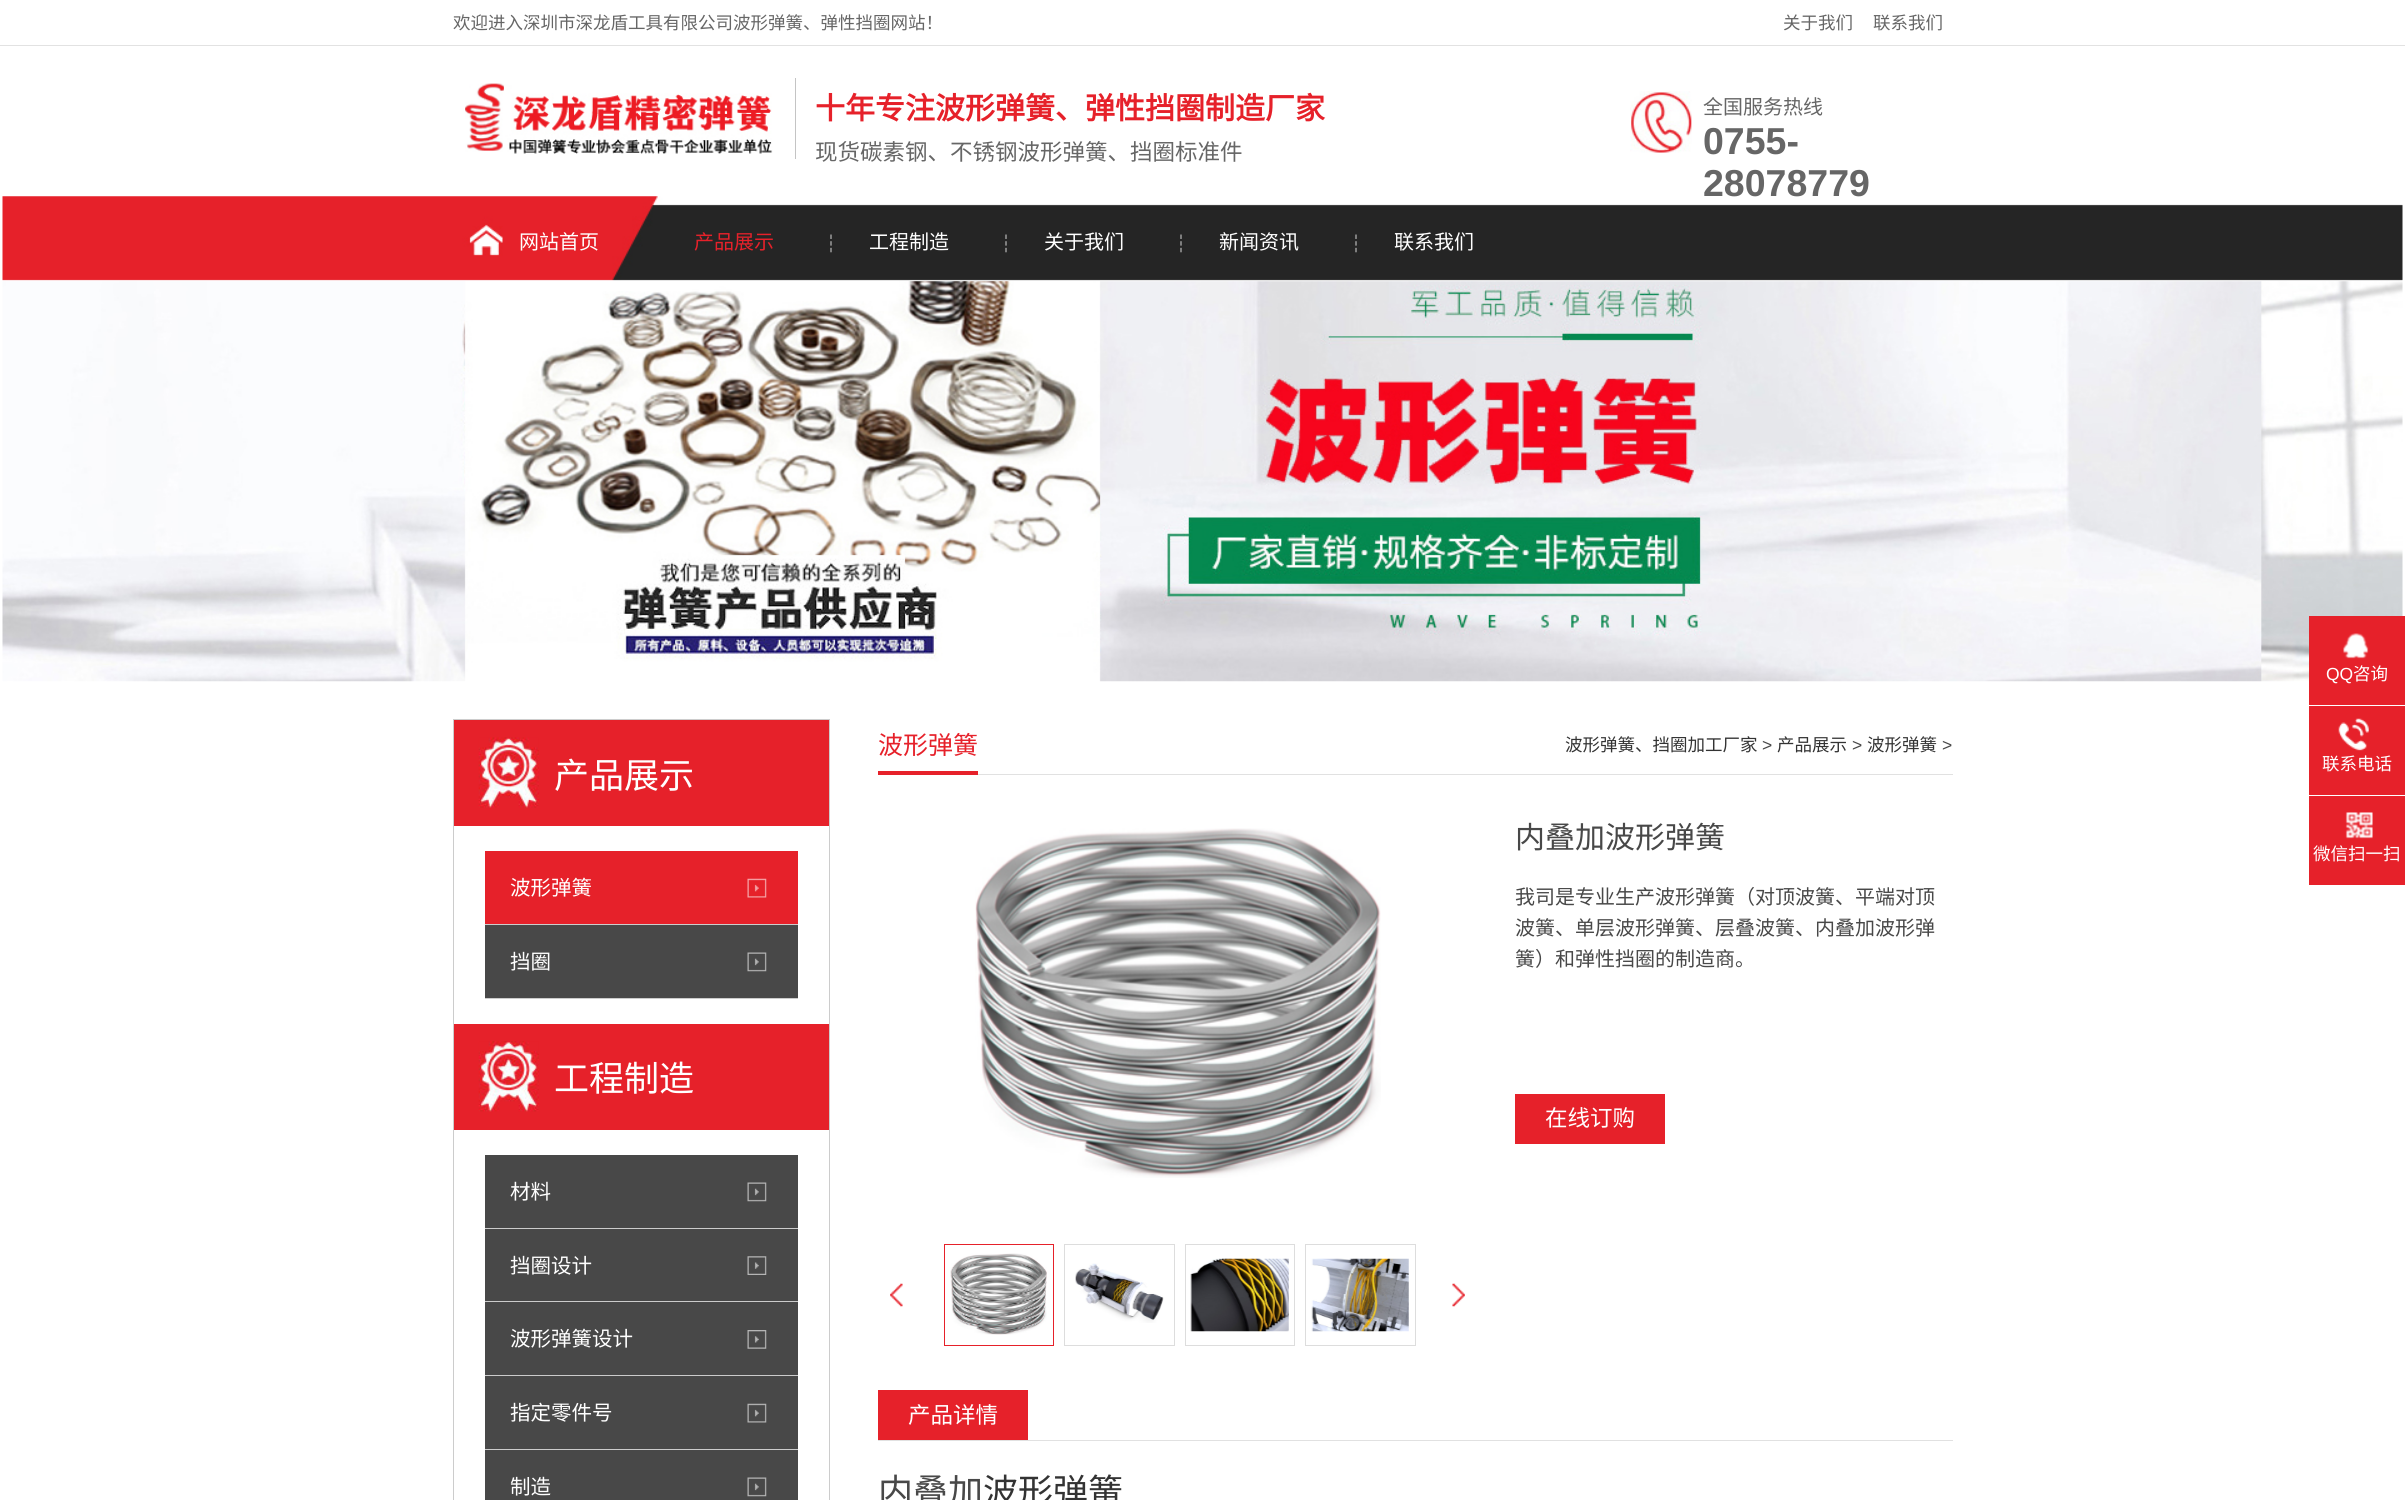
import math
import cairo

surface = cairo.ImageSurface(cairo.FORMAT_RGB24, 2405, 1500)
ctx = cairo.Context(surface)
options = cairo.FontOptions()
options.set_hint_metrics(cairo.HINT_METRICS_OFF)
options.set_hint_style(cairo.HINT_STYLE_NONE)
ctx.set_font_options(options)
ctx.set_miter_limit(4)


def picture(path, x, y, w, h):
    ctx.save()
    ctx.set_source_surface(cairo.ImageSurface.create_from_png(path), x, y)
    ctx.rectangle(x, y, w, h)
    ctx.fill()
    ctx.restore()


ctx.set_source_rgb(1, 1, 1)
ctx.paint()
ctx.set_source_rgb(0.886, 0.886, 0.886)
ctx.rectangle(0, 45, 2405, 1)
ctx.fill()
ctx.select_font_face("Noto Sans CJK SC")
ctx.set_font_size(17.5)
ctx.set_source_rgb(0.4, 0.4, 0.4)
ctx.move_to(453, 29)
ctx.show_text("欢迎进入深圳市深龙盾工具有限公司波形弹簧、弹性挡圈网站！")
ctx.move_to(1783, 29)
ctx.show_text("关于我们")
ctx.move_to(1873, 29)
ctx.show_text("联系我们")
picture("img1.png", 465, 83, 308, 71)
ctx.set_source_rgb(0.769, 0.769, 0.769)
ctx.rectangle(795, 78, 1, 81)
ctx.fill()
ctx.select_font_face("Noto Sans CJK SC", cairo.FONT_SLANT_NORMAL, cairo.FONT_WEIGHT_BOLD)
ctx.set_font_size(30)
ctx.set_source_rgb(0.902, 0.129, 0.165)
ctx.move_to(815, 119)
ctx.show_text("十年专注波形弹簧、弹性挡圈制造厂家")
ctx.select_font_face("Noto Sans CJK SC")
ctx.set_font_size(22.5)
ctx.set_source_rgb(0.4, 0.4, 0.4)
ctx.move_to(815, 160)
ctx.show_text("现货碳素钢、不锈钢波形弹簧、挡圈标准件")
picture("img2.png", 1630, 91, 62, 62)
ctx.set_font_size(20)
ctx.move_to(1703, 114)
ctx.show_text("全国服务热线")
ctx.select_font_face("Liberation Sans", cairo.FONT_SLANT_NORMAL, cairo.FONT_WEIGHT_BOLD)
ctx.set_font_size(37.5)
ctx.move_to(1703, 154)
ctx.show_text("0755-")
picture("img3.png", 2, 196, 2401, 85)
ctx.move_to(1703, 196)
ctx.show_text("28078779")
ctx.select_font_face("Noto Sans CJK SC")
ctx.set_font_size(20)
ctx.set_source_rgb(1, 1, 1)
ctx.move_to(519, 249)
ctx.show_text("网站首页")
ctx.set_source_rgb(0.902, 0.129, 0.165)
ctx.move_to(694, 249)
ctx.show_text("产品展示")
ctx.set_source_rgb(1, 1, 1)
ctx.move_to(821, 251)
ctx.show_text("┆")
ctx.move_to(869, 249)
ctx.show_text("工程制造")
ctx.move_to(996, 251)
ctx.show_text("┆")
ctx.move_to(1044, 249)
ctx.show_text("关于我们")
ctx.move_to(1171, 251)
ctx.show_text("┆")
ctx.move_to(1219, 249)
ctx.show_text("新闻资讯")
ctx.move_to(1346, 251)
ctx.show_text("┆")
ctx.move_to(1394, 249)
ctx.show_text("联系我们")
picture("img4.png", 2, 281, 2401, 401)
ctx.rectangle(453.5, 719.5, 376, 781)
ctx.set_source_rgb(0.8, 0.8, 0.8)
ctx.set_line_width(1)
ctx.stroke()
ctx.set_source_rgb(0.902, 0.129, 0.165)
ctx.rectangle(454, 720, 375, 106)
ctx.fill()
picture("img5.png", 478, 737, 61, 71)
ctx.set_font_size(35)
ctx.set_source_rgb(1, 1, 1)
ctx.move_to(554, 788)
ctx.show_text("产品展示")
ctx.set_source_rgb(0.902, 0.129, 0.165)
ctx.rectangle(485, 851, 313, 73)
ctx.fill()
picture("img6.png", 747, 878, 20, 20)
ctx.set_source_rgb(0.8, 0.8, 0.8)
ctx.rectangle(485, 924, 313, 1)
ctx.fill()
ctx.set_font_size(20.5)
ctx.set_source_rgb(1, 1, 1)
ctx.move_to(510, 895)
ctx.show_text("波形弹簧")
ctx.set_source_rgb(0.282, 0.282, 0.282)
ctx.rectangle(485, 925, 313, 73)
ctx.fill()
picture("img7.png", 747, 952, 20, 20)
ctx.set_source_rgb(0.8, 0.8, 0.8)
ctx.rectangle(485, 998, 313, 1)
ctx.fill()
ctx.set_source_rgb(1, 1, 1)
ctx.move_to(510, 969)
ctx.show_text("挡圈")
ctx.set_source_rgb(0.902, 0.129, 0.165)
ctx.rectangle(454, 1024, 375, 106)
ctx.fill()
picture("img8.png", 478, 1041, 61, 71)
ctx.set_font_size(35)
ctx.set_source_rgb(1, 1, 1)
ctx.move_to(554, 1091)
ctx.show_text("工程制造")
ctx.set_source_rgb(0.282, 0.282, 0.282)
ctx.rectangle(485, 1155, 313, 73)
ctx.fill()
picture("img7.png", 747, 1182, 20, 20)
ctx.set_source_rgb(0.8, 0.8, 0.8)
ctx.rectangle(485, 1228, 313, 1)
ctx.fill()
ctx.set_font_size(20.5)
ctx.set_source_rgb(1, 1, 1)
ctx.move_to(510, 1199)
ctx.show_text("材料")
ctx.set_source_rgb(0.282, 0.282, 0.282)
ctx.rectangle(485, 1229, 313, 146)
ctx.fill()
picture("img9.png", 747, 1256, 20, 19)
ctx.set_source_rgb(0.8, 0.8, 0.8)
ctx.rectangle(485, 1301, 313, 1)
ctx.fill()
ctx.set_source_rgb(1, 1, 1)
ctx.move_to(510, 1273)
ctx.show_text("挡圈设计")
picture("img10.png", 747, 1330, 20, 19)
ctx.set_source_rgb(0.8, 0.8, 0.8)
ctx.rectangle(485, 1375, 313, 1)
ctx.fill()
ctx.set_source_rgb(1, 1, 1)
ctx.move_to(510, 1346)
ctx.show_text("波形弹簧设计")
ctx.set_source_rgb(0.282, 0.282, 0.282)
ctx.rectangle(485, 1376, 313, 73)
ctx.fill()
picture("img11.png", 747, 1403, 20, 20)
ctx.set_source_rgb(0.8, 0.8, 0.8)
ctx.rectangle(485, 1449, 313, 1)
ctx.fill()
ctx.set_source_rgb(1, 1, 1)
ctx.move_to(510, 1420)
ctx.show_text("指定零件号")
ctx.set_source_rgb(0.282, 0.282, 0.282)
ctx.rectangle(485, 1450, 313, 50)
ctx.fill()
picture("img7.png", 747, 1477, 20, 20)
ctx.set_source_rgb(1, 1, 1)
ctx.move_to(510, 1494)
ctx.show_text("制造")
ctx.set_source_rgb(0.882, 0.882, 0.882)
ctx.rectangle(978, 774, 975, 1)
ctx.fill()
ctx.set_font_size(25)
ctx.set_source_rgb(0.902, 0.129, 0.165)
ctx.move_to(878, 754)
ctx.show_text("波形弹簧")
ctx.rectangle(878, 771, 100, 4)
ctx.fill()
ctx.set_font_size(17.5)
ctx.set_source_rgb(0.2, 0.2, 0.2)
ctx.move_to(1565, 751)
ctx.show_text("波形弹簧、挡圈加工厂家")
ctx.select_font_face("Liberation Sans")
ctx.set_source_rgb(0.282, 0.282, 0.282)
ctx.move_to(1762, 751)
ctx.show_text(">")
ctx.select_font_face("Noto Sans CJK SC")
ctx.set_source_rgb(0.2, 0.2, 0.2)
ctx.move_to(1777, 751)
ctx.show_text("产品展示")
ctx.select_font_face("Liberation Sans")
ctx.set_source_rgb(0.282, 0.282, 0.282)
ctx.move_to(1852, 751)
ctx.show_text(">")
ctx.select_font_face("Noto Sans CJK SC")
ctx.set_source_rgb(0.2, 0.2, 0.2)
ctx.move_to(1867, 751)
ctx.show_text("波形弹簧")
ctx.select_font_face("Liberation Sans")
ctx.set_source_rgb(0.282, 0.282, 0.282)
ctx.move_to(1942, 751)
ctx.show_text(">")
picture("img12.png", 975, 828, 406, 350)
picture("img13.png", 890, 1283, 13, 24)
ctx.rectangle(944.5, 1244.5, 109, 101)
ctx.set_source_rgb(0.902, 0.129, 0.165)
ctx.stroke()
picture("img14.png", 950, 1253, 97, 82)
ctx.rectangle(1064.5, 1244.5, 110, 101)
ctx.set_source_rgb(0.867, 0.867, 0.867)
ctx.stroke()
picture("img15.png", 1075, 1263, 89, 60)
ctx.rectangle(1185.5, 1244.5, 109, 101)
ctx.stroke()
picture("img16.png", 1190, 1258, 99, 74)
ctx.rectangle(1305.5, 1244.5, 110, 101)
ctx.stroke()
picture("img17.png", 1311, 1258, 98, 74)
picture("img18.png", 1452, 1283, 13, 24)
ctx.select_font_face("Noto Sans CJK SC")
ctx.set_font_size(30)
ctx.set_source_rgb(0.282, 0.282, 0.282)
ctx.move_to(1515, 848)
ctx.show_text("内叠加波形弹簧")
ctx.set_font_size(20)
ctx.move_to(1515, 904)
ctx.show_text("我司是专业生产波形弹簧（对顶波簧、平端对顶")
ctx.move_to(1515, 935)
ctx.show_text("波簧、单层波形弹簧、层叠波簧、内叠加波形弹")
ctx.move_to(1515, 966)
ctx.show_text("簧）和弹性挡圈的制造商。")
ctx.set_source_rgb(0.902, 0.129, 0.165)
ctx.rectangle(1515, 1094, 150, 50)
ctx.fill()
ctx.set_font_size(22.5)
ctx.set_source_rgb(1, 1, 1)
ctx.move_to(1545, 1126)
ctx.show_text("在线订购")
ctx.set_source_rgb(0.882, 0.882, 0.882)
ctx.rectangle(878, 1440, 1075, 1)
ctx.fill()
ctx.set_source_rgb(0.902, 0.129, 0.165)
ctx.rectangle(878, 1390, 150, 50)
ctx.fill()
ctx.set_source_rgb(1, 1, 1)
ctx.move_to(908, 1423)
ctx.show_text("产品详情")
ctx.set_font_size(35)
ctx.set_source_rgb(0.282, 0.282, 0.282)
ctx.move_to(878, 1504)
ctx.show_text("内叠加")
ctx.set_source_rgb(0.2, 0.2, 0.2)
ctx.move_to(983, 1504)
ctx.show_text("波形弹簧")
ctx.set_source_rgb(0.902, 0.129, 0.165)
ctx.rectangle(2309, 616, 96, 89)
ctx.fill()
picture("img19.png", 2343, 633, 26, 26)
ctx.select_font_face("Liberation Sans")
ctx.set_font_size(17.5)
ctx.set_source_rgb(1, 1, 1)
ctx.move_to(2326, 680)
ctx.show_text("QQ")
ctx.select_font_face("Noto Sans CJK SC")
ctx.move_to(2353, 680)
ctx.show_text("咨询")
ctx.set_source_rgb(0.902, 0.129, 0.165)
ctx.rectangle(2309, 706, 96, 89)
ctx.fill()
picture("img20.png", 2338, 718, 31, 33)
ctx.set_source_rgb(1, 1, 1)
ctx.move_to(2322, 770)
ctx.show_text("联系电话")
ctx.set_source_rgb(0.902, 0.129, 0.165)
ctx.rectangle(2309, 796, 96, 89)
ctx.fill()
picture("img21.png", 2345, 812, 28, 27)
ctx.set_source_rgb(1, 1, 1)
ctx.move_to(2313, 860)
ctx.show_text("微信扫一扫")
surface.write_to_png("page.png")
